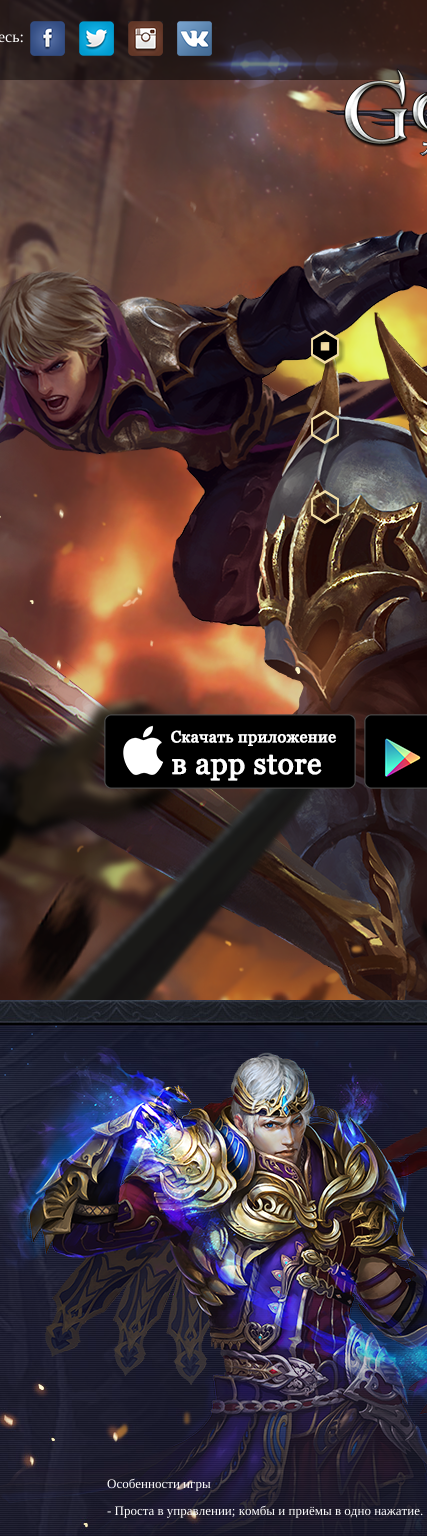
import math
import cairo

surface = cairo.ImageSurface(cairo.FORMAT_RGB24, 427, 1536)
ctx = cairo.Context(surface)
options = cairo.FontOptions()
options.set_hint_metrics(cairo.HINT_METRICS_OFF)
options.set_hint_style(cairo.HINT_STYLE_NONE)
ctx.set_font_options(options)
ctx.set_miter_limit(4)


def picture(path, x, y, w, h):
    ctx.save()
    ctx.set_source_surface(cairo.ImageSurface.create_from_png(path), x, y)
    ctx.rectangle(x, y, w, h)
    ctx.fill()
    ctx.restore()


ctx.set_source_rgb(1, 1, 1)
ctx.paint()
picture("img1.png", 0, 0, 427, 1000)
picture("img5.png", 229, 482, 186, 318)
picture("img3.png", 0, 229, 427, 399)
picture("img4.png", 0, 312, 427, 688)
picture("img2.png", 0, 128, 427, 872)
picture("img6.png", 0, 694, 364, 306)
picture("img7.png", 104, 714, 252, 75)
picture("img8.png", 364, 714, 63, 75)
ctx.set_source_rgba(0, 0, 0, 0.5)
ctx.rectangle(0, 0, 427, 80)
ctx.fill()
ctx.select_font_face("Liberation Serif")
ctx.set_font_size(16)
ctx.set_source_rgb(1, 1, 1)
ctx.move_to(-2, 42)
ctx.show_text("есь:")
picture("img9.png", 30, 21, 35, 35)
picture("img10.png", 79, 21, 35, 35)
picture("img11.png", 128, 21, 35, 35)
picture("img12.png", 177, 21, 35, 35)
picture("img13.png", 326, 68, 101, 89)
picture("img14.png", 311, 330, 35, 199)
picture("img15.png", 0, 1000, 427, 445)
picture("img17.png", 0, 1445, 427, 91)
picture("img16.png", 0, 1025, 427, 511)
ctx.set_font_size(13)
ctx.move_to(107, 1488)
ctx.show_text("Особенности игры")
ctx.move_to(107, 1515)
ctx.show_text("- Проста в управлении; комбы и приёмы в одно нажатие.")
surface.write_to_png("page.png")
